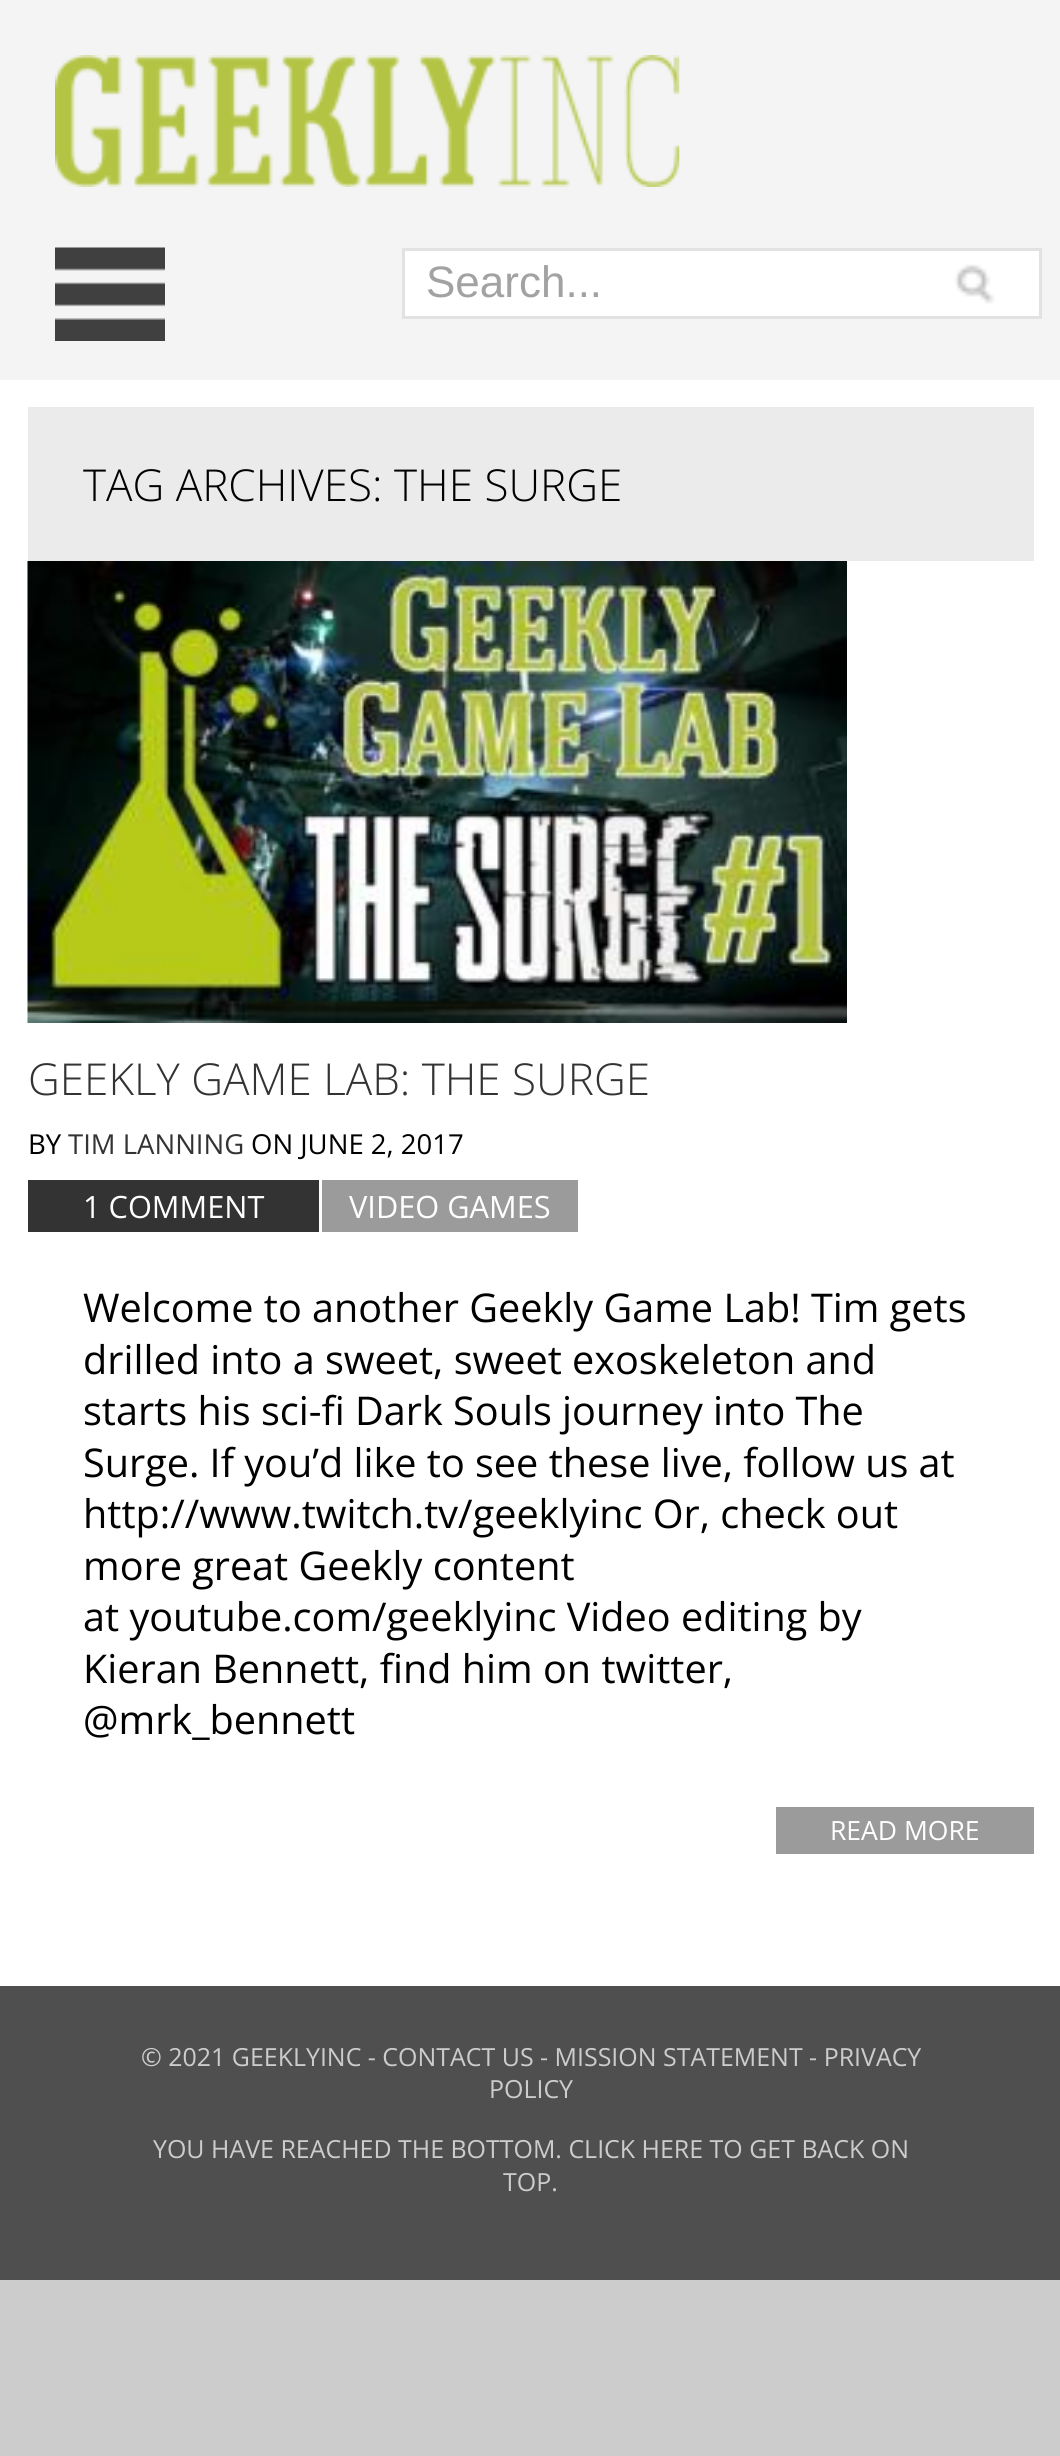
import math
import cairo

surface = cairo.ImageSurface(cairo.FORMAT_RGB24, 1060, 2456)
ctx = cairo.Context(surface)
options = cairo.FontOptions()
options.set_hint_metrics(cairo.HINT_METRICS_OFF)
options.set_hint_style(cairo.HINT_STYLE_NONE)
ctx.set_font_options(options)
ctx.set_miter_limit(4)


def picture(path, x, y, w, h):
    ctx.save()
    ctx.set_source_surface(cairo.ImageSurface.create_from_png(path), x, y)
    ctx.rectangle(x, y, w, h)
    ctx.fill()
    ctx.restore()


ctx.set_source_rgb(0.8, 0.8, 0.8)
ctx.paint()
ctx.set_source_rgb(1, 1, 1)
ctx.rectangle(0, 380, 1060, 1606)
ctx.fill()
ctx.set_source_rgb(0.957, 0.957, 0.957)
ctx.rectangle(0, 0, 1060, 380)
ctx.fill()
picture("img1.png", 55, 55, 625, 132)
picture("img2.png", 55, 247, 110, 94)
ctx.set_source_rgb(1, 1, 1)
ctx.rectangle(403.5, 249.5, 637, 68)
ctx.fill_preserve()
ctx.set_source_rgb(0.886, 0.886, 0.886)
ctx.set_line_width(3)
ctx.stroke()
ctx.select_font_face("Liberation Sans")
ctx.set_font_size(44)
ctx.set_source_rgb(0.635, 0.635, 0.635)
ctx.move_to(426, 297)
ctx.show_text("Search...")
picture("img3.png", 954, 264, 41, 40)
ctx.set_source_rgb(0.918, 0.918, 0.918)
ctx.rectangle(28, 407, 1006, 154)
ctx.fill()
ctx.select_font_face("Open Sans Light")
ctx.set_source_rgb(0, 0, 0)
ctx.move_to(83, 501)
ctx.show_text("TAG ARCHIVES: THE SURGE")
picture("img4.png", 27, 561, 820, 462)
ctx.set_source_rgb(0.2, 0.2, 0.2)
ctx.move_to(28, 1095)
ctx.show_text("GEEKLY GAME LAB: THE SURGE")
ctx.select_font_face("Open Sans")
ctx.set_font_size(27.5)
ctx.set_source_rgb(0, 0, 0)
ctx.move_to(28, 1154)
ctx.show_text("BY")
ctx.set_source_rgb(0.2, 0.2, 0.2)
ctx.move_to(68, 1154)
ctx.show_text("TIM LANNING")
ctx.set_source_rgb(0, 0, 0)
ctx.move_to(251, 1154)
ctx.show_text("ON JUNE 2, 2017")
ctx.set_source_rgb(0.2, 0.2, 0.2)
ctx.rectangle(28, 1180, 291, 52)
ctx.fill()
ctx.set_font_size(30.75)
ctx.set_source_rgb(1, 1, 1)
ctx.move_to(83, 1218)
ctx.show_text("1 COMMENT")
ctx.set_source_rgb(0.608, 0.608, 0.608)
ctx.rectangle(322, 1180, 256, 52)
ctx.fill()
ctx.set_source_rgb(1, 1, 1)
ctx.move_to(349, 1218)
ctx.show_text("VIDEO GAMES")
ctx.set_font_size(39.6)
ctx.set_source_rgb(0, 0, 0)
ctx.move_to(83, 1322)
ctx.show_text("Welcome to another Geekly Game Lab! Tim gets")
ctx.move_to(83, 1374)
ctx.show_text("drilled into a sweet, sweet exoskeleton and")
ctx.move_to(83, 1425)
ctx.show_text("starts his sci-fi Dark Souls journey into The")
ctx.move_to(83, 1477)
ctx.show_text("Surge. If you’d like to see these live, follow us at")
ctx.move_to(83, 1528)
ctx.show_text("http://www.twitch.tv/geeklyinc Or, check out")
ctx.move_to(83, 1580)
ctx.show_text("more great Geekly content")
ctx.move_to(83, 1631)
ctx.show_text("at youtube.com/geeklyinc Video editing by")
ctx.move_to(83, 1683)
ctx.show_text("Kieran Bennett, find him on twitter,")
ctx.move_to(83, 1734)
ctx.show_text("@mrk_bennett")
ctx.set_source_rgb(0.608, 0.608, 0.608)
ctx.rectangle(776, 1807, 258, 47)
ctx.fill()
ctx.set_font_size(26.5)
ctx.set_source_rgb(1, 1, 1)
ctx.move_to(830, 1840)
ctx.show_text("READ MORE")
ctx.set_source_rgb(0.31, 0.31, 0.31)
ctx.rectangle(0, 1986, 1060, 294)
ctx.fill()
ctx.set_font_size(24.95)
ctx.set_source_rgb(0.8, 0.8, 0.8)
ctx.move_to(141, 2066)
ctx.show_text("© 2021 GEEKLYINC - CONTACT US - MISSION STATEMENT - PRIVACY")
ctx.move_to(489, 2098)
ctx.show_text("POLICY")
ctx.move_to(153, 2158)
ctx.show_text("YOU HAVE REACHED THE BOTTOM. CLICK HERE TO GET BACK ON")
ctx.move_to(503, 2191)
ctx.show_text("TOP.")
surface.write_to_png("page.png")
